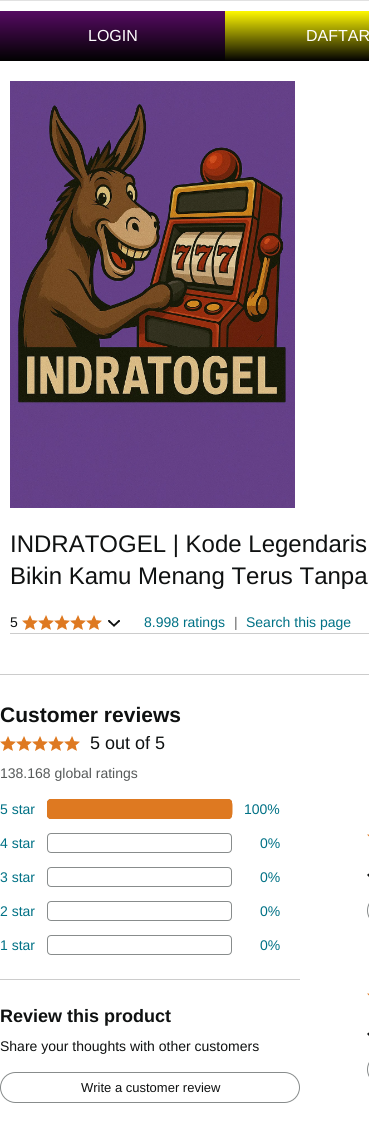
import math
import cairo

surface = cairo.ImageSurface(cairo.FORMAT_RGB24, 369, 1123)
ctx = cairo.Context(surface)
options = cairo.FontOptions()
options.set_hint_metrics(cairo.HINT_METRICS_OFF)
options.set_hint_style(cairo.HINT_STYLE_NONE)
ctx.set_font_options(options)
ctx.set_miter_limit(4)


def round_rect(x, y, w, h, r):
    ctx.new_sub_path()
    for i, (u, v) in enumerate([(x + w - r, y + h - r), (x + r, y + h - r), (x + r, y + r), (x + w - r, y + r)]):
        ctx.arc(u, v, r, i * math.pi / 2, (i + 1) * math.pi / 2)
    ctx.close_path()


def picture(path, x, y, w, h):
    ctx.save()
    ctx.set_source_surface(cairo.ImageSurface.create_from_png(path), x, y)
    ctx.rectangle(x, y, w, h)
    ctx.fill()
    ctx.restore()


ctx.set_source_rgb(1, 1, 1)
ctx.paint()
ctx.set_source_rgb(0.882, 0.882, 0.882)
ctx.rectangle(0, 0, 369, 1)
ctx.fill()
gradient = cairo.LinearGradient(113, 61, 113, 11)
gradient.add_color_stop_rgba(0, 0.004, 0.004, 0.004, 1)
gradient.add_color_stop_rgba(1, 0.337, 0.043, 0.384, 1)
ctx.set_source(gradient)
ctx.rectangle(0, 11, 225, 50)
ctx.fill()
ctx.select_font_face("Liberation Sans")
ctx.set_font_size(16)
ctx.set_source_rgb(1, 1, 1)
ctx.move_to(88, 41)
ctx.show_text("LOGIN")
gradient = cairo.LinearGradient(338, 61, 338, 11)
gradient.add_color_stop_rgba(0, 0.004, 0.004, 0.004, 1)
gradient.add_color_stop_rgba(1, 1, 0.973, 0.004, 1)
ctx.set_source(gradient)
ctx.rectangle(225, 11, 144, 50)
ctx.fill()
ctx.set_source_rgb(1, 1, 1)
ctx.move_to(306, 41)
ctx.show_text("DAFTAR")
picture("img1.png", 10, 81, 285, 427)
ctx.set_font_size(24)
ctx.set_source_rgb(0.059, 0.067, 0.067)
ctx.move_to(10, 552)
ctx.show_text("INDRATOGEL | Kode Legendaris")
ctx.move_to(10, 584)
ctx.show_text("Bikin Kamu Menang Terus Tanpa")
ctx.set_font_size(14)
ctx.move_to(10, 627)
ctx.show_text("5")
picture("img2.png", 22, 615, 80, 15)
picture("img3.png", 108, 620, 12, 7)
ctx.set_source_rgb(0, 0.443, 0.522)
ctx.move_to(144, 627)
ctx.show_text("8.998 ratings")
ctx.set_source_rgb(0.4, 0.4, 0.4)
ctx.move_to(234, 627)
ctx.show_text("|")
ctx.set_source_rgb(0, 0.443, 0.522)
ctx.move_to(246, 627)
ctx.show_text("Search this page")
ctx.set_source_rgb(0.8, 0.8, 0.8)
ctx.rectangle(10, 633, 359, 1)
ctx.fill()
ctx.rectangle(0, 674, 369, 1)
ctx.fill()
ctx.select_font_face("Liberation Sans", cairo.FONT_SLANT_NORMAL, cairo.FONT_WEIGHT_BOLD)
ctx.set_font_size(21)
ctx.set_source_rgb(0.059, 0.067, 0.067)
ctx.move_to(0, 722)
ctx.show_text("Customer reviews")
picture("img2.png", 0, 736, 80, 15)
ctx.select_font_face("Liberation Sans")
ctx.set_font_size(18)
ctx.move_to(90, 749)
ctx.show_text("5 out of 5")
ctx.set_font_size(14)
ctx.set_source_rgb(0.337, 0.349, 0.349)
ctx.move_to(0, 778)
ctx.show_text("138.168 global ratings")
ctx.set_source_rgb(0, 0.443, 0.522)
ctx.move_to(0, 814)
ctx.show_text("5 star")
round_rect(47.5, 799.5, 184, 19, 3.5)
ctx.set_source_rgb(0.533, 0.549, 0.549)
ctx.set_line_width(1)
ctx.stroke()
ctx.set_source_rgb(0.871, 0.475, 0.129)
round_rect(47, 799, 185, 20, 4)
ctx.fill()
ctx.set_fill_rule(cairo.FILL_RULE_EVEN_ODD)
ctx.new_path()
ctx.move_to(51, 799)
ctx.curve_to(49, 799, 47, 801, 47, 803)
ctx.line_to(47, 815)
ctx.curve_to(47, 817, 49, 819, 51, 819)
ctx.line_to(228, 819)
ctx.curve_to(229, 819, 230, 819, 231, 818)
ctx.line_to(51, 818)
ctx.curve_to(49, 818, 48, 817, 48, 815)
ctx.line_to(48, 803)
ctx.curve_to(48, 801, 49, 800, 51, 800)
ctx.line_to(231, 800)
ctx.line_to(228, 799)
ctx.close_path()
ctx.move_to(231, 800)
ctx.line_to(231, 818)
ctx.curve_to(233, 816, 233, 802, 231, 800)
ctx.close_path()
ctx.fill()
ctx.set_fill_rule(cairo.FILL_RULE_WINDING)
ctx.new_path()
ctx.move_to(231, 817.5)
ctx.curve_to(233, 815.5, 232, 811.5, 232, 809)
ctx.curve_to(232, 806.5, 233, 803, 231, 800.5)
ctx.curve_to(231, 806, 231.5, 812, 231, 817.5)
ctx.close_path()
ctx.fill()
ctx.set_source_rgb(0, 0.443, 0.522)
ctx.move_to(244, 814)
ctx.show_text("100%")
ctx.move_to(0, 848)
ctx.show_text("4 star")
round_rect(47.5, 833.5, 184, 19, 3.5)
ctx.set_source_rgb(0.533, 0.549, 0.549)
ctx.stroke()
ctx.set_source_rgb(0, 0.443, 0.522)
ctx.move_to(260, 848)
ctx.show_text("0%")
ctx.move_to(0, 882)
ctx.show_text("3 star")
round_rect(47.5, 867.5, 184, 19, 3.5)
ctx.set_source_rgb(0.533, 0.549, 0.549)
ctx.stroke()
ctx.set_source_rgb(0, 0.443, 0.522)
ctx.move_to(260, 882)
ctx.show_text("0%")
ctx.move_to(0, 916)
ctx.show_text("2 star")
round_rect(47.5, 901.5, 184, 19, 3.5)
ctx.set_source_rgb(0.533, 0.549, 0.549)
ctx.stroke()
ctx.set_source_rgb(0, 0.443, 0.522)
ctx.move_to(260, 916)
ctx.show_text("0%")
ctx.move_to(0, 950)
ctx.show_text("1 star")
round_rect(47.5, 935.5, 184, 19, 3.5)
ctx.set_source_rgb(0.533, 0.549, 0.549)
ctx.stroke()
ctx.set_source_rgb(0, 0.443, 0.522)
ctx.move_to(260, 950)
ctx.show_text("0%")
ctx.set_source_rgb(0.8, 0.8, 0.8)
ctx.rectangle(0, 979, 300, 1)
ctx.fill()
ctx.select_font_face("Liberation Sans", cairo.FONT_SLANT_NORMAL, cairo.FONT_WEIGHT_BOLD)
ctx.set_font_size(18)
ctx.set_source_rgb(0.059, 0.067, 0.067)
ctx.move_to(0, 1022)
ctx.show_text("Review this product")
ctx.select_font_face("Liberation Sans")
ctx.set_font_size(14)
ctx.move_to(0, 1051)
ctx.show_text("Share your thoughts with other customers")
round_rect(0.5, 1072.5, 299, 30, 15)
ctx.set_source_rgb(0.533, 0.549, 0.549)
ctx.stroke()
ctx.set_font_size(13)
ctx.set_source_rgb(0.059, 0.067, 0.067)
ctx.move_to(81, 1092)
ctx.show_text("Write a customer review")
picture("img4.png", 367, 834, 2, 3)
ctx.new_path()
ctx.move_to(368.5, 873.5)
ctx.line_to(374, 879)
ctx.line_to(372.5, 880.5)
ctx.line_to(367, 875)
ctx.close_path()
ctx.fill()
round_rect(367.5, 895.5, 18, 30, 15)
ctx.set_source_rgb(0.533, 0.549, 0.549)
ctx.stroke()
picture("img4.png", 367, 993, 2, 3)
ctx.set_source_rgb(0.059, 0.067, 0.067)
ctx.new_path()
ctx.move_to(368.5, 1032.5)
ctx.line_to(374, 1038)
ctx.line_to(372.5, 1039.5)
ctx.line_to(367, 1034)
ctx.close_path()
ctx.fill()
round_rect(367.5, 1054.5, 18, 30, 15)
ctx.set_source_rgb(0.533, 0.549, 0.549)
ctx.stroke()
surface.write_to_png("page.png")
